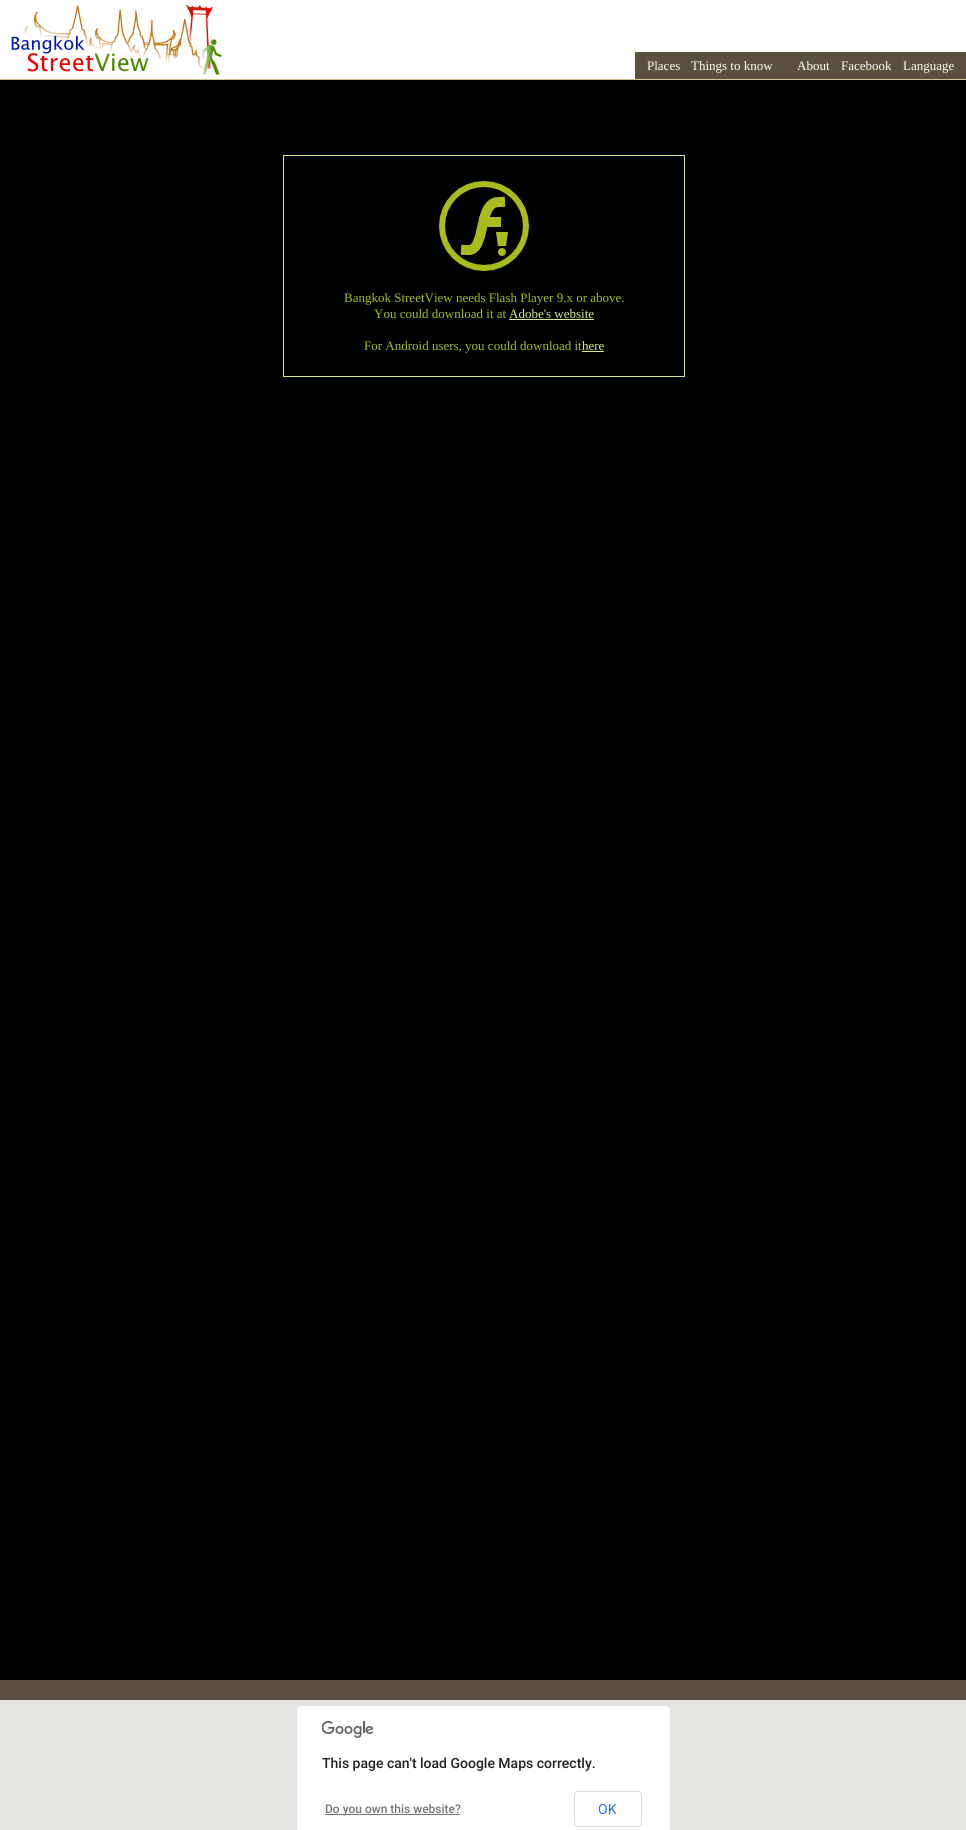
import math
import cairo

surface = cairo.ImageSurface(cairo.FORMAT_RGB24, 966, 1830)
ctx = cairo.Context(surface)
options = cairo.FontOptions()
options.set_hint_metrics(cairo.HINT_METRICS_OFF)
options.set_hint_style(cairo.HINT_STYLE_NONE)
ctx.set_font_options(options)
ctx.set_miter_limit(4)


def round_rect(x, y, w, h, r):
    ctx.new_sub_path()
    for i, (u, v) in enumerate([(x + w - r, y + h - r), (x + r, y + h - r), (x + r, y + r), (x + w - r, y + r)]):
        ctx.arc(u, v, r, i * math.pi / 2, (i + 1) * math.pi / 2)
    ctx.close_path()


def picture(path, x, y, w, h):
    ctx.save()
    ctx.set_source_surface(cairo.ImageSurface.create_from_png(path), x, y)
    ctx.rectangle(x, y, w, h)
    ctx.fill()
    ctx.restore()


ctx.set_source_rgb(1, 1, 1)
ctx.paint()
picture("img1.png", 11, 4, 211, 71)
ctx.set_source_rgb(0.353, 0.314, 0.239)
ctx.rectangle(635, 52, 331, 27)
ctx.fill()
ctx.select_font_face("Liberation Serif")
ctx.set_font_size(13)
ctx.set_source_rgb(1, 1, 1)
ctx.move_to(647, 70)
ctx.show_text("Places")
ctx.move_to(691, 70)
ctx.show_text("Things to know")
ctx.move_to(797, 70)
ctx.show_text("About")
ctx.move_to(841, 70)
ctx.show_text("Facebook")
ctx.move_to(903, 70)
ctx.show_text("Language")
ctx.set_source_rgb(0.831, 0.769, 0.58)
ctx.rectangle(0, 79, 966, 1)
ctx.fill()
ctx.set_source_rgb(0, 0, 0)
ctx.rectangle(0, 80, 966, 1600)
ctx.fill()
ctx.rectangle(283.5, 155.5, 401, 221)
ctx.set_source_rgb(0.851, 0.91, 0.533)
ctx.set_line_width(1)
ctx.stroke()
picture("img2.png", 439, 181, 90, 90)
ctx.set_source_rgb(0.667, 0.733, 0.114)
ctx.move_to(344, 302)
ctx.show_text("Bangkok StreetView needs Flash Player 9.x or above.")
ctx.move_to(374, 318)
ctx.show_text("You could download it at")
ctx.set_source_rgb(0.851, 0.91, 0.533)
ctx.move_to(509, 318)
ctx.show_text("Adobe's website")
ctx.rectangle(509, 319, 85, 1)
ctx.fill()
ctx.set_source_rgb(0.667, 0.733, 0.114)
ctx.move_to(364, 350)
ctx.show_text("For Android users, you could download it")
ctx.set_source_rgb(0.851, 0.91, 0.533)
ctx.move_to(582, 350)
ctx.show_text("here")
ctx.rectangle(582, 351, 22, 1)
ctx.fill()
ctx.set_source_rgb(0.353, 0.314, 0.239)
ctx.rectangle(0, 1680, 966, 20)
ctx.fill()
ctx.set_source_rgb(0.898, 0.89, 0.875)
ctx.rectangle(0, 1700, 966, 130)
ctx.fill()
ctx.set_source_rgb(1, 1, 1)
ctx.new_path()
ctx.move_to(301, 1705)
ctx.line_to(666, 1705)
ctx.curve_to(669, 1705, 671, 1707, 671, 1710)
ctx.line_to(671, 1830)
ctx.line_to(296, 1830)
ctx.line_to(296, 1710)
ctx.curve_to(296, 1707, 298, 1705, 301, 1705)
ctx.close_path()
ctx.fill()
round_rect(296.5, 1705.5, 374, 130, 4.5)
ctx.set_source_rgba(0, 0, 0, 0.12)
ctx.stroke()
picture("img3.png", 322, 1721, 52, 17)
ctx.select_font_face("Roboto Medium")
ctx.set_font_size(14)
ctx.set_source_rgb(0.129, 0.129, 0.129)
ctx.move_to(322, 1768)
ctx.show_text("This page can't load Google Maps correctly.")
ctx.set_source_rgb(0.459, 0.459, 0.459)
ctx.rectangle(325, 1814, 135, 1)
ctx.fill()
ctx.set_font_size(12)
ctx.move_to(325, 1813)
ctx.show_text("Do you own this website?")
round_rect(574.5, 1791.5, 67, 35, 3.5)
ctx.set_source_rgb(0.855, 0.863, 0.878)
ctx.stroke()
ctx.select_font_face("Roboto")
ctx.set_font_size(14)
ctx.set_source_rgb(0.102, 0.451, 0.91)
ctx.move_to(598, 1814)
ctx.show_text("OK")
surface.write_to_png("page.png")
